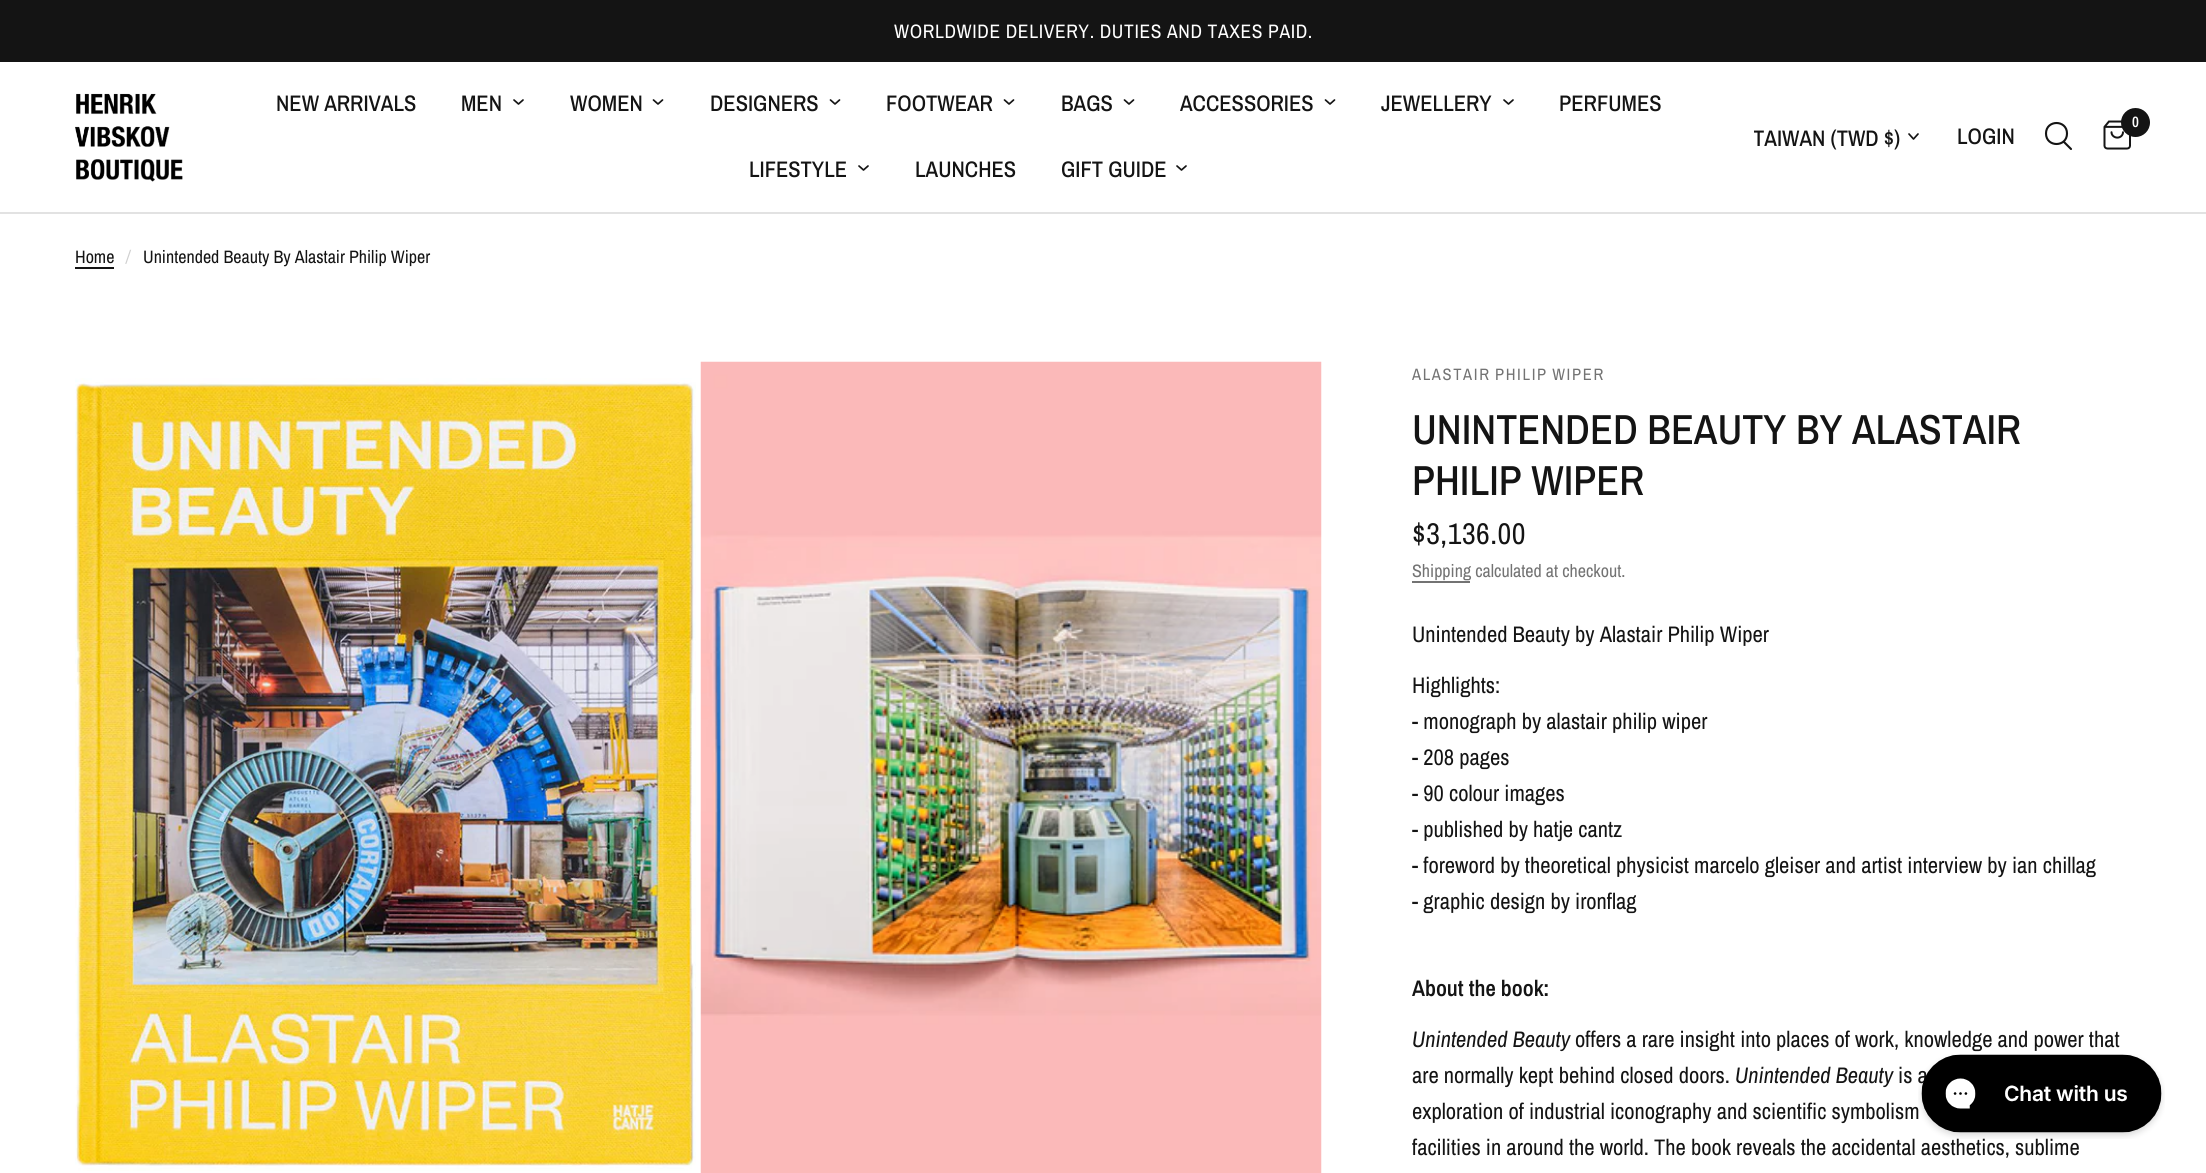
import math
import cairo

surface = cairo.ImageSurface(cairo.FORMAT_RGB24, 2206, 1173)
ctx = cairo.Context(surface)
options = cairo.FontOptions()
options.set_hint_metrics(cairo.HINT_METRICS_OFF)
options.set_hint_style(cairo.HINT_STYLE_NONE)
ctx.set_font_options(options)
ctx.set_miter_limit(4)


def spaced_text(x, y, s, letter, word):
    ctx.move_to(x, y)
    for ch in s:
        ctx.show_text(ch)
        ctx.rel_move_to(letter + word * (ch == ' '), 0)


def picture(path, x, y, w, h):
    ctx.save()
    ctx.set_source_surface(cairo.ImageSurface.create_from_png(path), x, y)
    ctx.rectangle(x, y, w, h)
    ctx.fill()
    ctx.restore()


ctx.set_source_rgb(1, 1, 1)
ctx.paint()
ctx.set_source_rgb(0.082, 0.082, 0.082)
ctx.rectangle(0, 0, 2206, 62)
ctx.fill()
ctx.select_font_face("Archivo Narrow")
ctx.set_font_size(19.5)
ctx.set_source_rgb(1, 1, 1)
spaced_text(894, 38, "WORLDWIDE DELIVERY. DUTIES AND TAXES PAID.", 0.6, 0)
ctx.set_source_rgb(0.886, 0.886, 0.886)
ctx.rectangle(0, 212, 2206, 2)
ctx.fill()
picture("img1.png", 75, 93, 108, 89)
ctx.select_font_face("Archivo Narrow Medium")
ctx.set_font_size(22.5)
ctx.set_source_rgb(0.082, 0.082, 0.082)
ctx.move_to(276, 111)
ctx.show_text("NEW ARRIVALS")
ctx.move_to(461, 111)
ctx.show_text("MEN")
ctx.new_path()
ctx.move_to(523, 100)
ctx.line_to(518.5, 104)
ctx.line_to(514, 100)
ctx.set_line_width(1.7)
ctx.set_line_cap(cairo.LINE_CAP_ROUND)
ctx.set_line_join(cairo.LINE_JOIN_ROUND)
ctx.stroke()
ctx.move_to(570, 111)
ctx.show_text("WOMEN")
ctx.new_path()
ctx.move_to(662.5, 100)
ctx.line_to(658, 104)
ctx.line_to(653.5, 100)
ctx.stroke()
ctx.move_to(710, 111)
ctx.show_text("DESIGNERS")
ctx.new_path()
ctx.move_to(839.5, 100)
ctx.line_to(835, 104)
ctx.line_to(830.5, 100)
ctx.stroke()
ctx.move_to(886, 111)
ctx.show_text("FOOTWEAR")
ctx.new_path()
ctx.move_to(1013.5, 100)
ctx.line_to(1009, 104)
ctx.line_to(1004.5, 100)
ctx.stroke()
ctx.move_to(1061, 111)
ctx.show_text("BAGS")
ctx.new_path()
ctx.move_to(1133.5, 100)
ctx.line_to(1129, 104)
ctx.line_to(1124.5, 100)
ctx.stroke()
ctx.move_to(1180, 111)
ctx.show_text("ACCESSORIES")
ctx.new_path()
ctx.move_to(1334.5, 100)
ctx.line_to(1330, 104)
ctx.line_to(1325.5, 100)
ctx.stroke()
ctx.move_to(1381, 111)
ctx.show_text("JEWELLERY")
ctx.new_path()
ctx.move_to(1513, 100)
ctx.line_to(1508.5, 104)
ctx.line_to(1504, 100)
ctx.stroke()
ctx.move_to(1559, 111)
ctx.show_text("PERFUMES")
ctx.move_to(749, 177)
ctx.show_text("LIFESTYLE")
ctx.new_path()
ctx.move_to(868, 166)
ctx.line_to(863.5, 170)
ctx.line_to(859, 166)
ctx.stroke()
ctx.move_to(915, 177)
ctx.show_text("LAUNCHES")
ctx.move_to(1061, 177)
ctx.show_text("GIFT GUIDE")
ctx.new_path()
ctx.move_to(1186, 166)
ctx.line_to(1181.5, 170)
ctx.line_to(1177, 166)
ctx.stroke()
ctx.save()
ctx.rectangle(1754, 128, 148, 22)
ctx.clip()
ctx.move_to(1753, 146)
ctx.show_text("TAIWAN (TWD $)")
ctx.restore()
ctx.new_path()
ctx.move_to(1918, 134)
ctx.line_to(1913.5, 139)
ctx.line_to(1909, 134)
ctx.stroke()
ctx.move_to(1957, 144)
ctx.show_text("LOGIN")
ctx.new_path()
ctx.move_to(2064, 142)
ctx.line_to(2071, 149)
ctx.move_to(2067, 133.5)
ctx.curve_to(2067, 147.5, 2046, 147.5, 2046, 133.5)
ctx.curve_to(2046, 119.5, 2067, 119.5, 2067, 133.5)
ctx.close_path()
ctx.set_line_width(2.1)
ctx.stroke()
picture("img2.png", 2103, 120, 28, 30)
ctx.arc(2135.5, 122.5, 14.5, 0, 2 * math.pi)
ctx.fill()
ctx.select_font_face("Archivo Narrow SemiBold")
ctx.set_font_size(15)
ctx.set_source_rgb(1, 1, 1)
ctx.move_to(2132, 127)
ctx.show_text("0")
ctx.select_font_face("Archivo Narrow")
ctx.set_font_size(18)
ctx.set_source_rgb(0.082, 0.082, 0.082)
ctx.move_to(75, 263)
ctx.show_text("Home")
ctx.rectangle(75, 267, 39, 2)
ctx.fill()
ctx.select_font_face("Archivo Narrow", cairo.FONT_SLANT_ITALIC)
ctx.set_source_rgb(0.816, 0.816, 0.816)
ctx.move_to(126, 263)
ctx.show_text("/")
ctx.select_font_face("Archivo Narrow")
ctx.set_source_rgb(0.082, 0.082, 0.082)
ctx.move_to(143, 263)
ctx.show_text("Unintended Beauty By Alastair Philip Wiper")
picture("img3.png", 75, 378, 621, 793)
picture("img4.png", 700, 361, 622, 812)
ctx.set_font_size(16.5)
ctx.set_source_rgb(0.451, 0.451, 0.451)
spaced_text(1412, 380, "ALASTAIR PHILIP WIPER", 1.65, -1)
ctx.select_font_face("Archivo Narrow Medium")
ctx.set_font_size(42)
ctx.set_source_rgb(0.082, 0.082, 0.082)
ctx.move_to(1412, 444)
ctx.show_text("UNINTENDED BEAUTY BY ALASTAIR")
ctx.move_to(1412, 495)
ctx.show_text("PHILIP WIPER")
ctx.select_font_face("Archivo Narrow")
ctx.set_font_size(30)
spaced_text(1412, 544, "$3,136.00", 0.5, 0)
ctx.set_font_size(18)
ctx.set_source_rgb(0.451, 0.451, 0.451)
ctx.move_to(1412, 577)
ctx.show_text("Shipping calculated at checkout.")
ctx.rectangle(1412, 581, 58, 2)
ctx.fill()
ctx.set_font_size(22.5)
ctx.set_source_rgb(0.082, 0.082, 0.082)
ctx.move_to(1412, 642)
ctx.show_text("Unintended Beauty by Alastair Philip Wiper")
ctx.move_to(1412, 693)
ctx.show_text("Highlights:")
ctx.move_to(1412, 729)
ctx.show_text("- monograph by alastair philip wiper")
ctx.move_to(1412, 765)
ctx.show_text("- 208 pages")
ctx.move_to(1412, 801)
ctx.show_text("- 90 colour images")
ctx.move_to(1412, 837)
ctx.show_text("- published by hatje cantz")
ctx.move_to(1412, 873)
ctx.show_text("- foreword by theoretical physicist marcelo gleiser and artist interview by ian chillag")
ctx.move_to(1412, 909)
ctx.show_text("- graphic design by ironflag")
ctx.select_font_face("Archivo Narrow SemiBold")
ctx.move_to(1412, 996)
ctx.show_text("About the book:")
ctx.select_font_face("Archivo Narrow", cairo.FONT_SLANT_ITALIC)
ctx.move_to(1412, 1047)
ctx.show_text("Unintended Beauty")
ctx.select_font_face("Archivo Narrow")
ctx.move_to(1575, 1047)
ctx.show_text("offers a rare insight into places of work, knowledge and power that")
ctx.move_to(1412, 1083)
ctx.show_text("are normally kept behind closed doors.")
ctx.select_font_face("Archivo Narrow", cairo.FONT_SLANT_ITALIC)
ctx.move_to(1735, 1083)
ctx.show_text("Unintended Beauty")
ctx.select_font_face("Archivo Narrow")
ctx.move_to(1898, 1083)
ctx.show_text("is a")
ctx.move_to(1412, 1119)
ctx.show_text("exploration of industrial iconography and scientific symbolism")
ctx.move_to(1412, 1155)
ctx.show_text("facilities in around the world. The book reveals the accidental aesthetics, sublime")
picture("img5.png", 1918, 1054, 247, 85)
surface.write_to_png("page.png")
